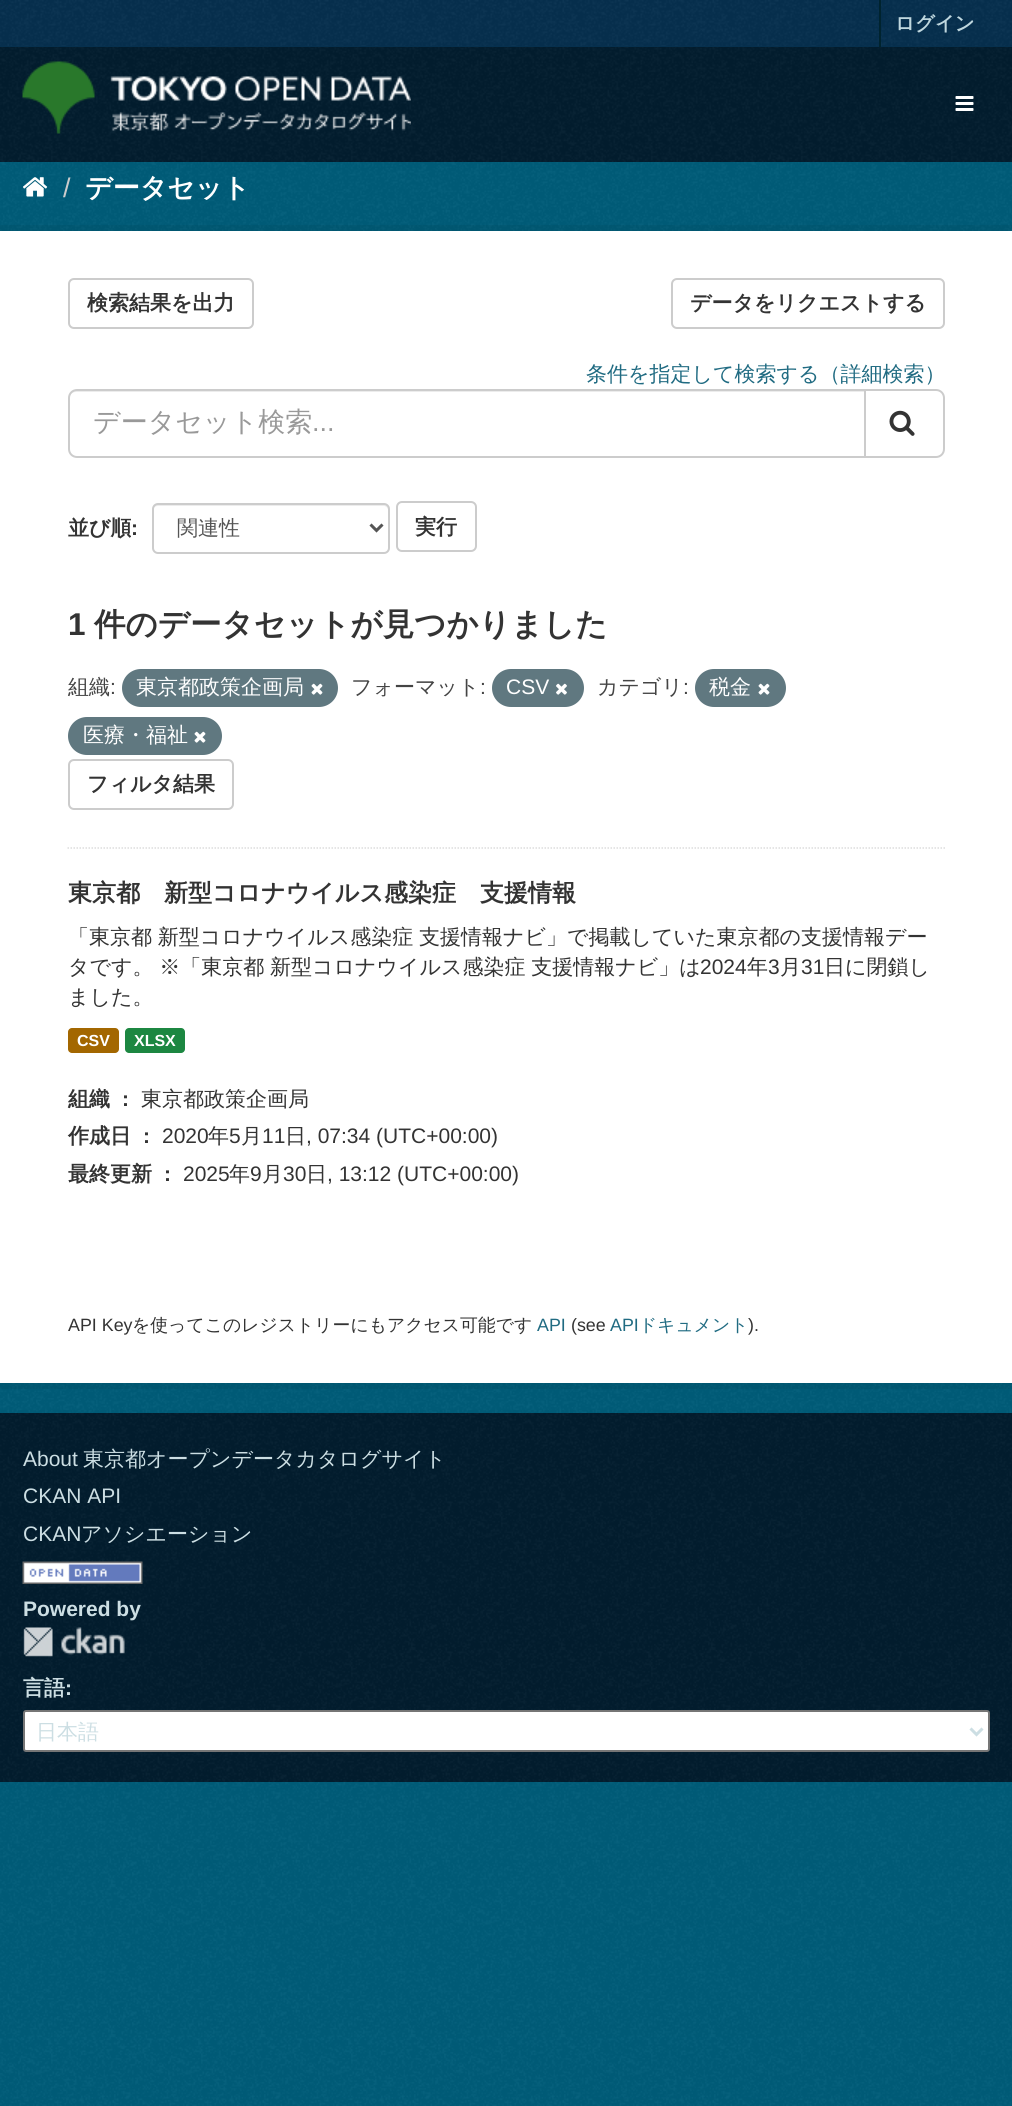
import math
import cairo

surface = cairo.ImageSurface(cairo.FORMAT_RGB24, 1012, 2106)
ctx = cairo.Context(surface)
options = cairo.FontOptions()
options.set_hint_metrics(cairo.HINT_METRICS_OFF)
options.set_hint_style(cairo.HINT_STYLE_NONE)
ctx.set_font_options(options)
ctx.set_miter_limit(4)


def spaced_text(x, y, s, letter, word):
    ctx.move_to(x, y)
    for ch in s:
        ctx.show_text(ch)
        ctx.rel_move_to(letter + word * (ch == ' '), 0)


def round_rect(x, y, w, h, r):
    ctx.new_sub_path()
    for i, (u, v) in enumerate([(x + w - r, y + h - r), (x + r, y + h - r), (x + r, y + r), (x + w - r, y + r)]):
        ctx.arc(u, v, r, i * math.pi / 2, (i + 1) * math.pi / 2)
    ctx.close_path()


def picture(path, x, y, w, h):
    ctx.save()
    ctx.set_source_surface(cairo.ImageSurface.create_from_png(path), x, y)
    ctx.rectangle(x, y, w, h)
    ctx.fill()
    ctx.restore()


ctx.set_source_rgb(0, 0.365, 0.478)
ctx.paint()
picture("img1.png", 0, 162, 1012, 1944)
ctx.set_source_rgb(0.024, 0.188, 0.306)
ctx.rectangle(0, 0, 1012, 47)
ctx.fill()
picture("img2.png", 0, 0, 1012, 46)
ctx.set_source_rgb(0, 0.137, 0.18)
ctx.rectangle(879, 0, 2, 47)
ctx.fill()
ctx.select_font_face("WenQuanYi Zen Hei", cairo.FONT_SLANT_NORMAL, cairo.FONT_WEIGHT_BOLD)
ctx.set_font_size(19.5)
ctx.set_source_rgb(0.749, 0.843, 0.871)
ctx.move_to(895, 30)
ctx.show_text("ログイン")
ctx.set_source_rgb(0.008, 0.114, 0.18)
ctx.rectangle(0, 47, 1012, 115)
ctx.fill()
picture("img3.png", 0, 47, 1012, 115)
picture("img4.png", 22, 61, 389, 73)
picture("img5.png", 955, 96, 19, 15)
picture("img6.png", 23, 177, 25, 20)
ctx.select_font_face("Liberation Sans")
ctx.set_font_size(27)
ctx.set_source_rgb(0.8, 0.8, 0.8)
ctx.move_to(63, 197)
ctx.show_text("/")
ctx.select_font_face("WenQuanYi Zen Hei", cairo.FONT_SLANT_NORMAL, cairo.FONT_WEIGHT_BOLD)
ctx.set_source_rgb(1, 1, 1)
ctx.move_to(85, 197)
ctx.show_text("データセット")
ctx.rectangle(-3, 228, 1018, 1158)
ctx.set_source_rgba(0, 0, 0, 0.05)
ctx.set_line_width(6)
ctx.stroke()
ctx.set_source_rgb(1, 1, 1)
ctx.rectangle(0, 231, 1012, 1152)
ctx.fill()
round_rect(69, 279, 184, 49, 5)
ctx.set_source_rgb(0.8, 0.8, 0.8)
ctx.set_line_width(2)
ctx.stroke()
ctx.set_font_size(21)
ctx.set_source_rgb(0.2, 0.2, 0.2)
ctx.move_to(87, 310)
ctx.show_text("検索結果を出力")
round_rect(672, 279, 272, 49, 5)
ctx.set_source_rgb(0.8, 0.8, 0.8)
ctx.stroke()
ctx.set_source_rgb(0.2, 0.2, 0.2)
ctx.move_to(690, 310)
ctx.show_text("データをリクエストする")
ctx.new_path()
ctx.move_to(67.5, 848)
ctx.line_to(945, 848)
ctx.set_source_rgb(0.867, 0.867, 0.867)
ctx.set_line_width(1.5)
ctx.set_dash([1.5, 1.5])
ctx.stroke()
ctx.select_font_face("WenQuanYi Zen Hei Medium")
ctx.set_source_rgb(0.125, 0.42, 0.51)
ctx.move_to(586, 381)
ctx.show_text("条件を指定して検索する（詳細検索）")
ctx.set_source_rgb(0.925, 0.925, 0.925)
ctx.new_path()
ctx.move_to(76, 392)
ctx.line_to(864, 392)
ctx.line_to(864, 390)
ctx.line_to(77, 390)
ctx.curve_to(72, 390, 69, 394, 69, 399)
ctx.curve_to(69, 395, 72, 392, 76, 392)
ctx.close_path()
ctx.fill()
ctx.new_path()
ctx.move_to(77, 390)
ctx.line_to(865, 390)
ctx.line_to(865, 457)
ctx.line_to(77, 457)
ctx.curve_to(72.5, 457, 69, 453.5, 69, 449)
ctx.line_to(69, 398)
ctx.curve_to(69, 393.5, 72.5, 390, 77, 390)
ctx.close_path()
ctx.set_source_rgb(0.8, 0.8, 0.8)
ctx.set_line_width(2)
ctx.set_dash([])
ctx.stroke()
ctx.set_font_size(27)
ctx.set_source_rgb(0.6, 0.6, 0.6)
ctx.move_to(93, 431)
ctx.show_text("データセット検索")
ctx.select_font_face("Liberation Sans")
ctx.move_to(312, 431)
ctx.show_text("...")
ctx.set_source_rgb(1, 1, 1)
ctx.new_path()
ctx.move_to(865, 390)
ctx.line_to(936, 390)
ctx.curve_to(940.5, 390, 944, 393.5, 944, 398)
ctx.line_to(944, 449)
ctx.curve_to(944, 453.5, 940.5, 457, 936, 457)
ctx.line_to(865, 457)
ctx.close_path()
ctx.fill_preserve()
ctx.set_source_rgb(0.8, 0.8, 0.8)
ctx.stroke()
picture("img7.png", 889, 410, 26, 26)
ctx.select_font_face("WenQuanYi Zen Hei", cairo.FONT_SLANT_NORMAL, cairo.FONT_WEIGHT_BOLD)
ctx.set_font_size(21)
ctx.set_source_rgb(0.2, 0.2, 0.2)
ctx.move_to(68, 535)
ctx.show_text("並び順")
ctx.select_font_face("Liberation Sans", cairo.FONT_SLANT_NORMAL, cairo.FONT_WEIGHT_BOLD)
ctx.move_to(131, 535)
ctx.show_text(":")
ctx.set_source_rgb(0.925, 0.925, 0.925)
ctx.new_path()
ctx.move_to(158, 506)
ctx.line_to(384, 506)
ctx.curve_to(386, 506, 388, 508, 388, 510)
ctx.line_to(388, 550)
ctx.curve_to(389, 549, 389, 548, 389, 547)
ctx.line_to(389, 509)
ctx.curve_to(389, 506, 387, 504, 384, 504)
ctx.line_to(158, 504)
ctx.curve_to(155, 504, 153, 506, 153, 509)
ctx.line_to(153, 510)
ctx.curve_to(153, 508, 155, 506, 158, 506)
ctx.close_path()
ctx.fill()
round_rect(153, 504, 236, 49, 5)
ctx.set_source_rgb(0.8, 0.8, 0.8)
ctx.stroke()
ctx.new_path()
ctx.move_to(370.5, 524.5)
ctx.line_to(376.5, 530.5)
ctx.line_to(382.5, 524.5)
ctx.set_source_rgb(0.333, 0.333, 0.333)
ctx.set_line_width(3)
ctx.stroke()
ctx.select_font_face("WenQuanYi Zen Hei Medium")
ctx.move_to(177, 535)
ctx.show_text("関連性")
round_rect(397, 502, 79, 49, 5)
ctx.set_source_rgb(0.8, 0.8, 0.8)
ctx.set_line_width(2)
ctx.stroke()
ctx.select_font_face("WenQuanYi Zen Hei", cairo.FONT_SLANT_NORMAL, cairo.FONT_WEIGHT_BOLD)
ctx.set_source_rgb(0.2, 0.2, 0.2)
ctx.move_to(415, 534)
ctx.show_text("実行")
ctx.select_font_face("Liberation Sans", cairo.FONT_SLANT_NORMAL, cairo.FONT_WEIGHT_BOLD)
ctx.set_font_size(31.5)
ctx.move_to(68, 635)
ctx.show_text("1")
ctx.select_font_face("WenQuanYi Zen Hei", cairo.FONT_SLANT_NORMAL, cairo.FONT_WEIGHT_BOLD)
ctx.move_to(94, 635)
ctx.show_text("件のデータセットが見つかりました")
ctx.select_font_face("WenQuanYi Zen Hei Medium")
ctx.set_font_size(21)
ctx.set_source_rgb(0.267, 0.267, 0.267)
ctx.move_to(68, 694)
ctx.show_text("組織")
ctx.select_font_face("Liberation Sans")
ctx.move_to(110, 694)
ctx.show_text(":")
ctx.set_source_rgb(0.376, 0.471, 0.502)
round_rect(122, 669, 216, 38, 19)
ctx.fill()
ctx.select_font_face("WenQuanYi Zen Hei Medium")
ctx.set_source_rgb(1, 1, 1)
ctx.move_to(136, 694)
ctx.show_text("東京都政策企画局")
picture("img8.png", 311, 683, 12, 12)
ctx.set_source_rgb(0.267, 0.267, 0.267)
ctx.move_to(351, 694)
ctx.show_text("フォーマット")
ctx.select_font_face("Liberation Sans")
ctx.move_to(480, 694)
ctx.show_text(":")
ctx.set_source_rgb(0.376, 0.471, 0.502)
round_rect(492, 669, 92, 38, 19)
ctx.fill()
ctx.set_source_rgb(1, 1, 1)
ctx.move_to(506, 694)
ctx.show_text("CSV")
picture("img9.png", 556, 683, 11, 12)
ctx.select_font_face("WenQuanYi Zen Hei Medium")
ctx.set_source_rgb(0.267, 0.267, 0.267)
ctx.move_to(597, 694)
ctx.show_text("カテゴリ")
ctx.select_font_face("Liberation Sans")
ctx.move_to(683, 694)
ctx.show_text(":")
ctx.set_source_rgb(0.376, 0.471, 0.502)
round_rect(695, 669, 91, 38, 19)
ctx.fill()
ctx.select_font_face("WenQuanYi Zen Hei Medium")
ctx.set_source_rgb(1, 1, 1)
ctx.move_to(709, 694)
ctx.show_text("税金")
picture("img8.png", 758, 683, 12, 12)
ctx.set_source_rgb(0.376, 0.471, 0.502)
round_rect(68, 717, 154, 38, 19)
ctx.fill()
ctx.set_source_rgb(1, 1, 1)
ctx.move_to(83, 742)
ctx.show_text("医療・福祉")
picture("img8.png", 194, 731, 12, 12)
round_rect(69, 760, 164, 49, 5)
ctx.set_source_rgb(0.8, 0.8, 0.8)
ctx.stroke()
ctx.select_font_face("WenQuanYi Zen Hei", cairo.FONT_SLANT_NORMAL, cairo.FONT_WEIGHT_BOLD)
ctx.set_source_rgb(0.2, 0.2, 0.2)
ctx.move_to(87, 791)
ctx.show_text("フィルタ結果")
ctx.set_font_size(24)
ctx.move_to(68, 901)
ctx.show_text("東京都　新型コロナウイルス感染症　支援情報")
ctx.select_font_face("WenQuanYi Zen Hei Medium")
ctx.set_font_size(21)
spaced_text(68, 944, "「東京都 新型コロナウイルス感染症 支援情報ナビ」で掲載していた東京都の支援情報デー", 0, -0.5)
spaced_text(68, 974, "タです。 ※「東京都 新型コロナウイルス感染症 支援情報ナビ」は", 0, -0.5)
ctx.select_font_face("Liberation Sans")
ctx.move_to(700, 974)
ctx.show_text("2024")
ctx.select_font_face("WenQuanYi Zen Hei Medium")
ctx.move_to(747, 974)
ctx.show_text("年")
ctx.select_font_face("Liberation Sans")
ctx.move_to(768, 974)
ctx.show_text("3")
ctx.select_font_face("WenQuanYi Zen Hei Medium")
ctx.move_to(780, 974)
ctx.show_text("月")
ctx.select_font_face("Liberation Sans")
ctx.move_to(801, 974)
ctx.show_text("31")
ctx.select_font_face("WenQuanYi Zen Hei Medium")
ctx.move_to(824, 974)
ctx.show_text("日に閉鎖し")
ctx.move_to(68, 1004)
ctx.show_text("ました。")
ctx.set_source_rgb(0.639, 0.404, 0)
round_rect(68, 1028, 51, 25, 4)
ctx.fill()
ctx.select_font_face("Liberation Sans", cairo.FONT_SLANT_NORMAL, cairo.FONT_WEIGHT_BOLD)
ctx.set_font_size(16)
ctx.set_source_rgb(1, 1, 1)
ctx.move_to(77, 1046)
ctx.show_text("CSV")
ctx.set_source_rgb(0.11, 0.529, 0.255)
round_rect(125, 1028, 60, 25, 4)
ctx.fill()
ctx.set_source_rgb(1, 1, 1)
ctx.move_to(134, 1046)
ctx.show_text("XLSX")
ctx.select_font_face("WenQuanYi Zen Hei", cairo.FONT_SLANT_NORMAL, cairo.FONT_WEIGHT_BOLD)
ctx.set_font_size(21)
ctx.set_source_rgb(0.2, 0.2, 0.2)
ctx.move_to(68, 1106)
ctx.show_text("組織")
ctx.select_font_face("Liberation Sans", cairo.FONT_SLANT_NORMAL, cairo.FONT_WEIGHT_BOLD)
ctx.move_to(122, 1106)
ctx.show_text(":")
ctx.select_font_face("WenQuanYi Zen Hei Medium")
ctx.move_to(141, 1106)
ctx.show_text("東京都政策企画局")
ctx.select_font_face("WenQuanYi Zen Hei", cairo.FONT_SLANT_NORMAL, cairo.FONT_WEIGHT_BOLD)
ctx.move_to(68, 1143)
ctx.show_text("作成日")
ctx.select_font_face("Liberation Sans", cairo.FONT_SLANT_NORMAL, cairo.FONT_WEIGHT_BOLD)
ctx.move_to(143, 1143)
ctx.show_text(":")
ctx.select_font_face("Liberation Sans")
ctx.move_to(162, 1143)
ctx.show_text("2020")
ctx.select_font_face("WenQuanYi Zen Hei Medium")
ctx.move_to(208, 1143)
ctx.show_text("年")
ctx.select_font_face("Liberation Sans")
ctx.move_to(229, 1143)
ctx.show_text("5")
ctx.select_font_face("WenQuanYi Zen Hei Medium")
ctx.move_to(241, 1143)
ctx.show_text("月")
ctx.select_font_face("Liberation Sans")
ctx.move_to(262, 1143)
ctx.show_text("11")
ctx.select_font_face("WenQuanYi Zen Hei Medium")
ctx.move_to(285, 1143)
ctx.show_text("日")
ctx.select_font_face("Liberation Sans")
ctx.move_to(306, 1143)
ctx.show_text(", 07:34 (UTC+00:00)")
ctx.select_font_face("WenQuanYi Zen Hei", cairo.FONT_SLANT_NORMAL, cairo.FONT_WEIGHT_BOLD)
ctx.move_to(68, 1181)
ctx.show_text("最終更新")
ctx.select_font_face("Liberation Sans", cairo.FONT_SLANT_NORMAL, cairo.FONT_WEIGHT_BOLD)
ctx.move_to(164, 1181)
ctx.show_text(":")
ctx.select_font_face("Liberation Sans")
ctx.move_to(183, 1181)
ctx.show_text("2025")
ctx.select_font_face("WenQuanYi Zen Hei Medium")
ctx.move_to(229, 1181)
ctx.show_text("年")
ctx.select_font_face("Liberation Sans")
ctx.move_to(250, 1181)
ctx.show_text("9")
ctx.select_font_face("WenQuanYi Zen Hei Medium")
ctx.move_to(262, 1181)
ctx.show_text("月")
ctx.select_font_face("Liberation Sans")
ctx.move_to(283, 1181)
ctx.show_text("30")
ctx.select_font_face("WenQuanYi Zen Hei Medium")
ctx.move_to(306, 1181)
ctx.show_text("日")
ctx.select_font_face("Liberation Sans")
ctx.move_to(327, 1181)
ctx.show_text(", 13:12 (UTC+00:00)")
ctx.set_font_size(17.85)
ctx.move_to(68, 1331)
ctx.show_text("API Key")
ctx.select_font_face("WenQuanYi Zen Hei Medium")
ctx.move_to(132, 1331)
ctx.show_text("を使ってこのレジストリーにもアクセス可能です")
ctx.select_font_face("Liberation Sans")
ctx.set_source_rgb(0.125, 0.42, 0.51)
ctx.move_to(537, 1331)
ctx.show_text("API")
ctx.set_source_rgb(0.2, 0.2, 0.2)
ctx.move_to(571, 1331)
ctx.show_text("(see")
ctx.set_source_rgb(0.125, 0.42, 0.51)
ctx.move_to(610, 1331)
ctx.show_text("API")
ctx.select_font_face("WenQuanYi Zen Hei Medium")
ctx.move_to(639, 1331)
ctx.show_text("ドキュメント")
ctx.select_font_face("Liberation Sans")
ctx.set_source_rgb(0.2, 0.2, 0.2)
ctx.move_to(748, 1331)
ctx.show_text(").")
ctx.set_source_rgb(0.008, 0.114, 0.18)
ctx.rectangle(0, 1413, 1012, 369)
ctx.fill()
picture("img10.png", 0, 1413, 1012, 369)
ctx.set_font_size(21)
ctx.set_source_rgb(0.8, 0.871, 0.89)
ctx.move_to(23, 1466)
ctx.show_text("About")
ctx.select_font_face("WenQuanYi Zen Hei Medium")
ctx.move_to(83, 1466)
ctx.show_text("東京都オープンデータカタログサイト")
ctx.select_font_face("Liberation Sans")
ctx.move_to(23, 1503)
ctx.show_text("CKAN API")
ctx.move_to(23, 1541)
ctx.show_text("CKAN")
ctx.select_font_face("WenQuanYi Zen Hei Medium")
ctx.move_to(81, 1541)
ctx.show_text("アソシエーション")
picture("img11.png", 22, 1561, 121, 23)
ctx.select_font_face("Liberation Sans", cairo.FONT_SLANT_NORMAL, cairo.FONT_WEIGHT_BOLD)
ctx.move_to(23, 1616)
ctx.show_text("Powered by")
picture("img12.png", 23, 1627, 102, 30)
ctx.select_font_face("WenQuanYi Zen Hei", cairo.FONT_SLANT_NORMAL, cairo.FONT_WEIGHT_BOLD)
ctx.move_to(23, 1695)
ctx.show_text("言語")
ctx.select_font_face("Liberation Sans", cairo.FONT_SLANT_NORMAL, cairo.FONT_WEIGHT_BOLD)
ctx.move_to(65, 1695)
ctx.show_text(":")
ctx.set_source_rgb(1, 1, 1)
round_rect(24, 1711, 965, 40, 2)
ctx.fill_preserve()
ctx.set_source_rgb(0.463, 0.463, 0.463)
ctx.stroke()
ctx.new_path()
ctx.move_to(970.5, 1728.5)
ctx.line_to(976.5, 1734.5)
ctx.line_to(982.5, 1728.5)
ctx.set_source_rgb(0.8, 0.871, 0.89)
ctx.set_line_width(3)
ctx.stroke()
ctx.select_font_face("WenQuanYi Zen Hei Medium")
ctx.move_to(36, 1739)
ctx.show_text("日本語")
surface.write_to_png("page.png")
